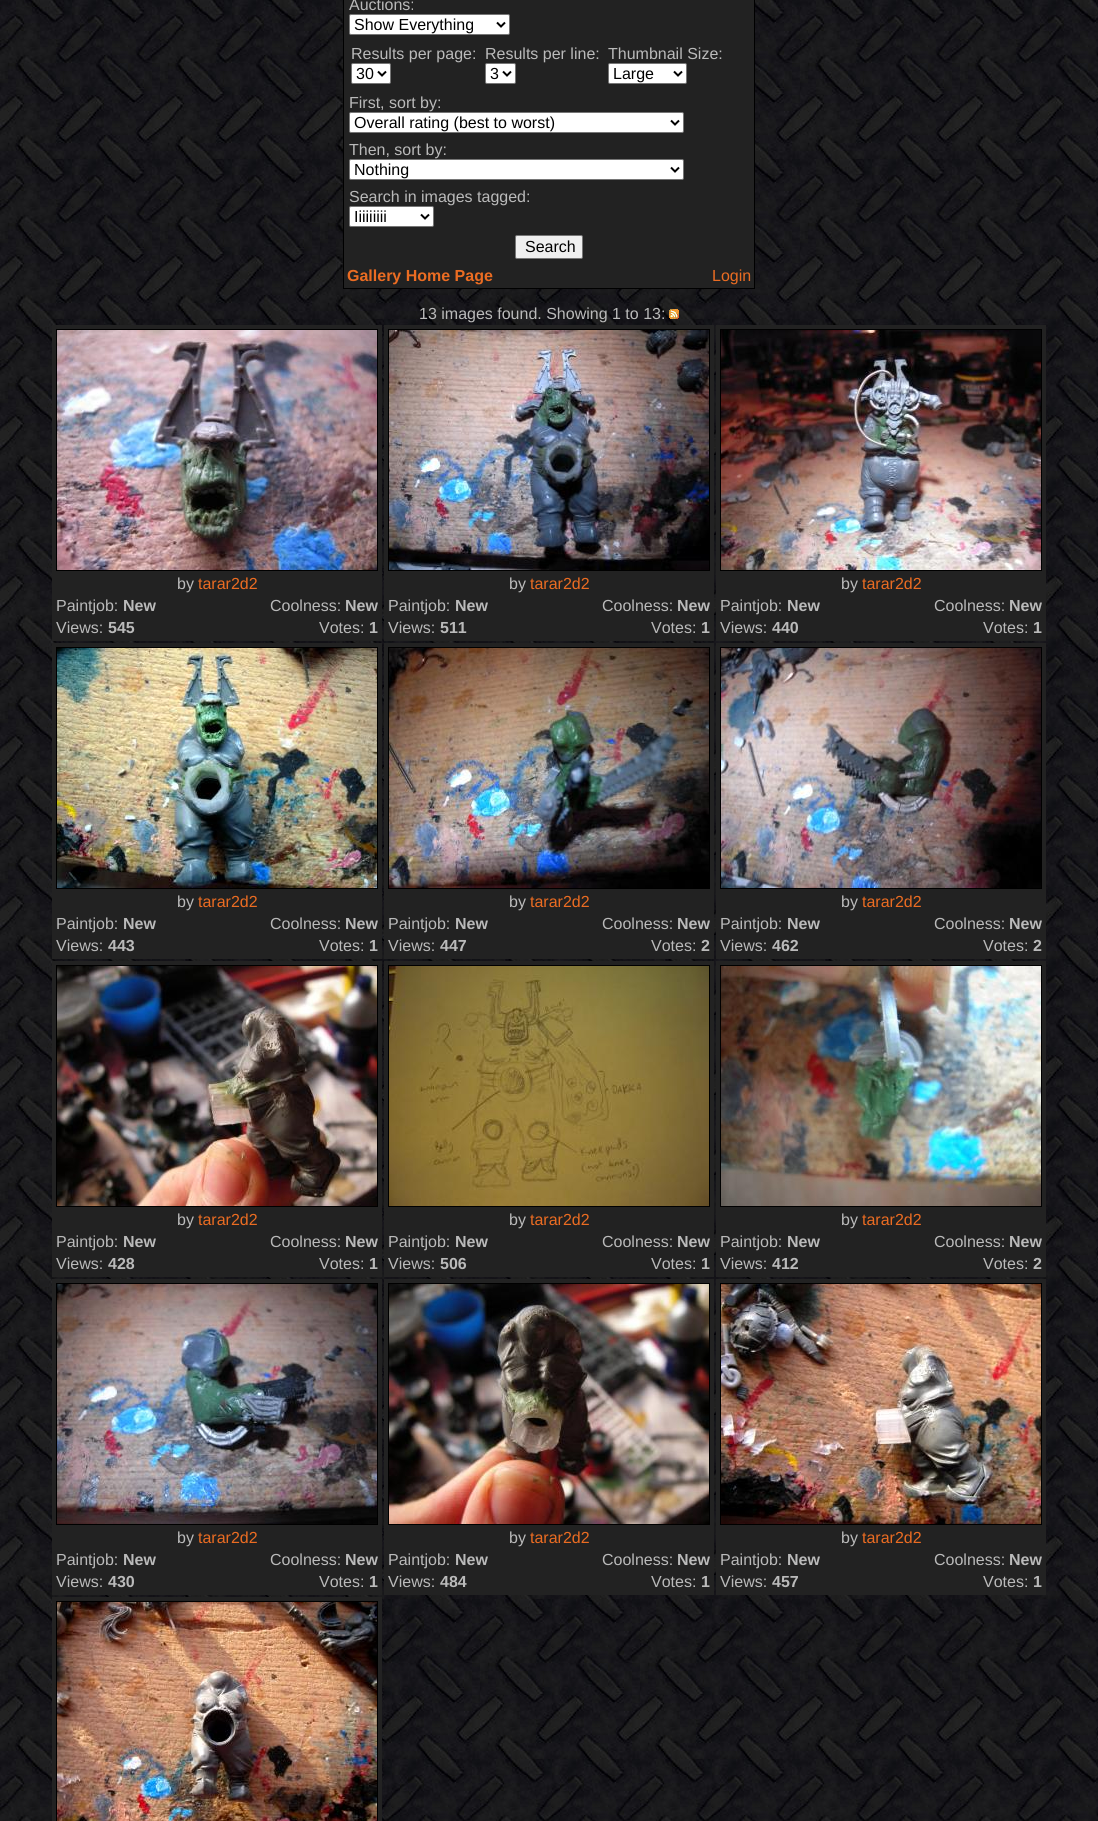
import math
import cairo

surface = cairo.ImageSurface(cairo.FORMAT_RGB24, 1098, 1821)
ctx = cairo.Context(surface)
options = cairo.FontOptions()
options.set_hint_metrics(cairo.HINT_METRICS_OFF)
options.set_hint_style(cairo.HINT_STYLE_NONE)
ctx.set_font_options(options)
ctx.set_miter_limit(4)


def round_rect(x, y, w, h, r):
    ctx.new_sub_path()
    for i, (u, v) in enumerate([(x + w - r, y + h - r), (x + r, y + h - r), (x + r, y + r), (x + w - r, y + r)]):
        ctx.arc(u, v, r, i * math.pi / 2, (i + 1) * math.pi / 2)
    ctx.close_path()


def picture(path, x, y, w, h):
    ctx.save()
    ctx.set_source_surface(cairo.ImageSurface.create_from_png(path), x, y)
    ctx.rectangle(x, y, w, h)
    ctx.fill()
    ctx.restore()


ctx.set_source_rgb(1, 1, 1)
ctx.paint()
picture("img1.png", 0, 0, 1098, 1821)
ctx.rectangle(343.5, -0.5, 411, 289)
ctx.set_source_rgb(0, 0, 0)
ctx.set_line_width(1)
ctx.stroke()
ctx.set_source_rgb(0.133, 0.133, 0.133)
ctx.rectangle(344, 0, 410, 288)
ctx.fill()
ctx.select_font_face("Liberation Sans")
ctx.set_font_size(16)
ctx.set_source_rgb(0.729, 0.729, 0.729)
ctx.move_to(349, 10)
ctx.show_text("Auctions:")
ctx.set_source_rgb(1, 1, 1)
round_rect(349.5, 14.5, 160, 20, 1.5)
ctx.fill_preserve()
ctx.set_source_rgb(0.463, 0.463, 0.463)
ctx.stroke()
ctx.new_path()
ctx.move_to(497, 22.5)
ctx.line_to(501, 26.5)
ctx.line_to(505, 22.5)
ctx.set_source_rgb(0, 0, 0)
ctx.set_line_width(2)
ctx.stroke()
ctx.move_to(354, 30)
ctx.show_text("Show Everything")
ctx.set_source_rgb(0.729, 0.729, 0.729)
ctx.move_to(351, 59)
ctx.show_text("Results per page:")
ctx.set_source_rgb(1, 1, 1)
round_rect(351.5, 63.5, 39, 20, 1.5)
ctx.fill_preserve()
ctx.set_source_rgb(0.463, 0.463, 0.463)
ctx.set_line_width(1)
ctx.stroke()
ctx.new_path()
ctx.move_to(378, 71.5)
ctx.line_to(382, 75.5)
ctx.line_to(386, 71.5)
ctx.set_source_rgb(0, 0, 0)
ctx.set_line_width(2)
ctx.stroke()
ctx.move_to(356, 79)
ctx.show_text("30")
ctx.set_source_rgb(0.729, 0.729, 0.729)
ctx.move_to(485, 59)
ctx.show_text("Results per line:")
ctx.set_source_rgb(1, 1, 1)
round_rect(485.5, 63.5, 30, 20, 1.5)
ctx.fill_preserve()
ctx.set_source_rgb(0.463, 0.463, 0.463)
ctx.set_line_width(1)
ctx.stroke()
ctx.new_path()
ctx.move_to(503, 71.5)
ctx.line_to(507, 75.5)
ctx.line_to(511, 71.5)
ctx.set_source_rgb(0, 0, 0)
ctx.set_line_width(2)
ctx.stroke()
ctx.move_to(490, 79)
ctx.show_text("3")
ctx.set_source_rgb(0.729, 0.729, 0.729)
ctx.move_to(608, 59)
ctx.show_text("Thumbnail Size:")
ctx.set_source_rgb(1, 1, 1)
round_rect(608.5, 63.5, 78, 20, 1.5)
ctx.fill_preserve()
ctx.set_source_rgb(0.463, 0.463, 0.463)
ctx.set_line_width(1)
ctx.stroke()
ctx.new_path()
ctx.move_to(674, 71.5)
ctx.line_to(678, 75.5)
ctx.line_to(682, 71.5)
ctx.set_source_rgb(0, 0, 0)
ctx.set_line_width(2)
ctx.stroke()
ctx.move_to(613, 79)
ctx.show_text("Large")
ctx.set_source_rgb(0.729, 0.729, 0.729)
ctx.move_to(349, 108)
ctx.show_text("First, sort by:")
ctx.set_source_rgb(1, 1, 1)
round_rect(349.5, 112.5, 334, 20, 1.5)
ctx.fill_preserve()
ctx.set_source_rgb(0.463, 0.463, 0.463)
ctx.set_line_width(1)
ctx.stroke()
ctx.new_path()
ctx.move_to(671, 120.5)
ctx.line_to(675, 124.5)
ctx.line_to(679, 120.5)
ctx.set_source_rgb(0, 0, 0)
ctx.set_line_width(2)
ctx.stroke()
ctx.move_to(354, 128)
ctx.show_text("Overall rating (best to worst)")
ctx.set_source_rgb(0.729, 0.729, 0.729)
ctx.move_to(349, 155)
ctx.show_text("Then, sort by:")
ctx.set_source_rgb(1, 1, 1)
round_rect(349.5, 159.5, 334, 20, 1.5)
ctx.fill_preserve()
ctx.set_source_rgb(0.463, 0.463, 0.463)
ctx.set_line_width(1)
ctx.stroke()
ctx.new_path()
ctx.move_to(671, 167.5)
ctx.line_to(675, 171.5)
ctx.line_to(679, 167.5)
ctx.set_source_rgb(0, 0, 0)
ctx.set_line_width(2)
ctx.stroke()
ctx.move_to(354, 175)
ctx.show_text("Nothing")
ctx.set_source_rgb(0.729, 0.729, 0.729)
ctx.move_to(349, 202)
ctx.show_text("Search in images tagged:")
ctx.set_source_rgb(1, 1, 1)
round_rect(349.5, 206.5, 84, 20, 1.5)
ctx.fill_preserve()
ctx.set_source_rgb(0.463, 0.463, 0.463)
ctx.set_line_width(1)
ctx.stroke()
ctx.new_path()
ctx.move_to(421, 214.5)
ctx.line_to(425, 218.5)
ctx.line_to(429, 214.5)
ctx.set_source_rgb(0, 0, 0)
ctx.set_line_width(2)
ctx.stroke()
ctx.move_to(354, 222)
ctx.show_text("Iiiiiiiii")
ctx.set_source_rgb(0.937, 0.937, 0.937)
round_rect(515.5, 235.5, 67, 23, 1.5)
ctx.fill_preserve()
ctx.set_source_rgb(0.463, 0.463, 0.463)
ctx.set_line_width(1)
ctx.stroke()
ctx.set_source_rgb(0, 0, 0)
ctx.move_to(525, 252)
ctx.show_text("Search")
ctx.select_font_face("Liberation Sans", cairo.FONT_SLANT_NORMAL, cairo.FONT_WEIGHT_BOLD)
ctx.set_source_rgb(0.918, 0.424, 0.133)
ctx.move_to(347, 281)
ctx.show_text("Gallery Home Page")
ctx.select_font_face("Liberation Sans")
ctx.move_to(712, 281)
ctx.show_text("Login")
ctx.set_source_rgb(0.729, 0.729, 0.729)
ctx.move_to(419, 319)
ctx.show_text("13 images found. Showing 1 to 13:")
picture("img2.png", 669, 309, 10, 10)
ctx.set_source_rgb(0.133, 0.133, 0.133)
ctx.rectangle(52, 325, 330, 316)
ctx.fill()
ctx.rectangle(56.5, 329.5, 321, 241)
ctx.set_source_rgb(0, 0, 0)
ctx.stroke()
picture("img3.png", 57, 330, 320, 240)
ctx.set_source_rgb(0.729, 0.729, 0.729)
ctx.move_to(177, 589)
ctx.show_text("by")
ctx.set_source_rgb(0.918, 0.424, 0.133)
ctx.move_to(198, 589)
ctx.show_text("tarar2d2")
ctx.set_source_rgb(0.729, 0.729, 0.729)
ctx.move_to(56, 611)
ctx.show_text("Paintjob:")
ctx.select_font_face("Liberation Sans", cairo.FONT_SLANT_NORMAL, cairo.FONT_WEIGHT_BOLD)
ctx.move_to(123, 611)
ctx.show_text("New")
ctx.select_font_face("Liberation Sans")
ctx.move_to(270, 611)
ctx.show_text("Coolness:")
ctx.select_font_face("Liberation Sans", cairo.FONT_SLANT_NORMAL, cairo.FONT_WEIGHT_BOLD)
ctx.move_to(345, 611)
ctx.show_text("New")
ctx.select_font_face("Liberation Sans")
ctx.move_to(56, 633)
ctx.show_text("Views:")
ctx.select_font_face("Liberation Sans", cairo.FONT_SLANT_NORMAL, cairo.FONT_WEIGHT_BOLD)
ctx.move_to(108, 633)
ctx.show_text("545")
ctx.select_font_face("Liberation Sans")
ctx.move_to(319, 633)
ctx.show_text("Votes:")
ctx.select_font_face("Liberation Sans", cairo.FONT_SLANT_NORMAL, cairo.FONT_WEIGHT_BOLD)
ctx.move_to(369, 633)
ctx.show_text("1")
ctx.set_source_rgb(0.133, 0.133, 0.133)
ctx.rectangle(384, 325, 330, 316)
ctx.fill()
ctx.rectangle(388.5, 329.5, 321, 241)
ctx.set_source_rgb(0, 0, 0)
ctx.stroke()
picture("img4.png", 389, 330, 320, 240)
ctx.select_font_face("Liberation Sans")
ctx.set_source_rgb(0.729, 0.729, 0.729)
ctx.move_to(509, 589)
ctx.show_text("by")
ctx.set_source_rgb(0.918, 0.424, 0.133)
ctx.move_to(530, 589)
ctx.show_text("tarar2d2")
ctx.set_source_rgb(0.729, 0.729, 0.729)
ctx.move_to(388, 611)
ctx.show_text("Paintjob:")
ctx.select_font_face("Liberation Sans", cairo.FONT_SLANT_NORMAL, cairo.FONT_WEIGHT_BOLD)
ctx.move_to(455, 611)
ctx.show_text("New")
ctx.select_font_face("Liberation Sans")
ctx.move_to(602, 611)
ctx.show_text("Coolness:")
ctx.select_font_face("Liberation Sans", cairo.FONT_SLANT_NORMAL, cairo.FONT_WEIGHT_BOLD)
ctx.move_to(677, 611)
ctx.show_text("New")
ctx.select_font_face("Liberation Sans")
ctx.move_to(388, 633)
ctx.show_text("Views:")
ctx.select_font_face("Liberation Sans", cairo.FONT_SLANT_NORMAL, cairo.FONT_WEIGHT_BOLD)
ctx.move_to(440, 633)
ctx.show_text("511")
ctx.select_font_face("Liberation Sans")
ctx.move_to(651, 633)
ctx.show_text("Votes:")
ctx.select_font_face("Liberation Sans", cairo.FONT_SLANT_NORMAL, cairo.FONT_WEIGHT_BOLD)
ctx.move_to(701, 633)
ctx.show_text("1")
ctx.set_source_rgb(0.133, 0.133, 0.133)
ctx.rectangle(716, 325, 330, 316)
ctx.fill()
ctx.rectangle(720.5, 329.5, 321, 241)
ctx.set_source_rgb(0, 0, 0)
ctx.stroke()
picture("img5.png", 721, 330, 320, 240)
ctx.select_font_face("Liberation Sans")
ctx.set_source_rgb(0.729, 0.729, 0.729)
ctx.move_to(841, 589)
ctx.show_text("by")
ctx.set_source_rgb(0.918, 0.424, 0.133)
ctx.move_to(862, 589)
ctx.show_text("tarar2d2")
ctx.set_source_rgb(0.729, 0.729, 0.729)
ctx.move_to(720, 611)
ctx.show_text("Paintjob:")
ctx.select_font_face("Liberation Sans", cairo.FONT_SLANT_NORMAL, cairo.FONT_WEIGHT_BOLD)
ctx.move_to(787, 611)
ctx.show_text("New")
ctx.select_font_face("Liberation Sans")
ctx.move_to(934, 611)
ctx.show_text("Coolness:")
ctx.select_font_face("Liberation Sans", cairo.FONT_SLANT_NORMAL, cairo.FONT_WEIGHT_BOLD)
ctx.move_to(1009, 611)
ctx.show_text("New")
ctx.select_font_face("Liberation Sans")
ctx.move_to(720, 633)
ctx.show_text("Views:")
ctx.select_font_face("Liberation Sans", cairo.FONT_SLANT_NORMAL, cairo.FONT_WEIGHT_BOLD)
ctx.move_to(772, 633)
ctx.show_text("440")
ctx.select_font_face("Liberation Sans")
ctx.move_to(983, 633)
ctx.show_text("Votes:")
ctx.select_font_face("Liberation Sans", cairo.FONT_SLANT_NORMAL, cairo.FONT_WEIGHT_BOLD)
ctx.move_to(1033, 633)
ctx.show_text("1")
ctx.set_source_rgb(0.133, 0.133, 0.133)
ctx.rectangle(52, 643, 330, 316)
ctx.fill()
ctx.rectangle(56.5, 647.5, 321, 241)
ctx.set_source_rgb(0, 0, 0)
ctx.stroke()
picture("img6.png", 57, 648, 320, 240)
ctx.select_font_face("Liberation Sans")
ctx.set_source_rgb(0.729, 0.729, 0.729)
ctx.move_to(177, 907)
ctx.show_text("by")
ctx.set_source_rgb(0.918, 0.424, 0.133)
ctx.move_to(198, 907)
ctx.show_text("tarar2d2")
ctx.set_source_rgb(0.729, 0.729, 0.729)
ctx.move_to(56, 929)
ctx.show_text("Paintjob:")
ctx.select_font_face("Liberation Sans", cairo.FONT_SLANT_NORMAL, cairo.FONT_WEIGHT_BOLD)
ctx.move_to(123, 929)
ctx.show_text("New")
ctx.select_font_face("Liberation Sans")
ctx.move_to(270, 929)
ctx.show_text("Coolness:")
ctx.select_font_face("Liberation Sans", cairo.FONT_SLANT_NORMAL, cairo.FONT_WEIGHT_BOLD)
ctx.move_to(345, 929)
ctx.show_text("New")
ctx.select_font_face("Liberation Sans")
ctx.move_to(56, 951)
ctx.show_text("Views:")
ctx.select_font_face("Liberation Sans", cairo.FONT_SLANT_NORMAL, cairo.FONT_WEIGHT_BOLD)
ctx.move_to(108, 951)
ctx.show_text("443")
ctx.select_font_face("Liberation Sans")
ctx.move_to(319, 951)
ctx.show_text("Votes:")
ctx.select_font_face("Liberation Sans", cairo.FONT_SLANT_NORMAL, cairo.FONT_WEIGHT_BOLD)
ctx.move_to(369, 951)
ctx.show_text("1")
ctx.set_source_rgb(0.133, 0.133, 0.133)
ctx.rectangle(384, 643, 330, 316)
ctx.fill()
ctx.rectangle(388.5, 647.5, 321, 241)
ctx.set_source_rgb(0, 0, 0)
ctx.stroke()
picture("img7.png", 389, 648, 320, 240)
ctx.select_font_face("Liberation Sans")
ctx.set_source_rgb(0.729, 0.729, 0.729)
ctx.move_to(509, 907)
ctx.show_text("by")
ctx.set_source_rgb(0.918, 0.424, 0.133)
ctx.move_to(530, 907)
ctx.show_text("tarar2d2")
ctx.set_source_rgb(0.729, 0.729, 0.729)
ctx.move_to(388, 929)
ctx.show_text("Paintjob:")
ctx.select_font_face("Liberation Sans", cairo.FONT_SLANT_NORMAL, cairo.FONT_WEIGHT_BOLD)
ctx.move_to(455, 929)
ctx.show_text("New")
ctx.select_font_face("Liberation Sans")
ctx.move_to(602, 929)
ctx.show_text("Coolness:")
ctx.select_font_face("Liberation Sans", cairo.FONT_SLANT_NORMAL, cairo.FONT_WEIGHT_BOLD)
ctx.move_to(677, 929)
ctx.show_text("New")
ctx.select_font_face("Liberation Sans")
ctx.move_to(388, 951)
ctx.show_text("Views:")
ctx.select_font_face("Liberation Sans", cairo.FONT_SLANT_NORMAL, cairo.FONT_WEIGHT_BOLD)
ctx.move_to(440, 951)
ctx.show_text("447")
ctx.select_font_face("Liberation Sans")
ctx.move_to(651, 951)
ctx.show_text("Votes:")
ctx.select_font_face("Liberation Sans", cairo.FONT_SLANT_NORMAL, cairo.FONT_WEIGHT_BOLD)
ctx.move_to(701, 951)
ctx.show_text("2")
ctx.set_source_rgb(0.133, 0.133, 0.133)
ctx.rectangle(716, 643, 330, 316)
ctx.fill()
ctx.rectangle(720.5, 647.5, 321, 241)
ctx.set_source_rgb(0, 0, 0)
ctx.stroke()
picture("img8.png", 721, 648, 320, 240)
ctx.select_font_face("Liberation Sans")
ctx.set_source_rgb(0.729, 0.729, 0.729)
ctx.move_to(841, 907)
ctx.show_text("by")
ctx.set_source_rgb(0.918, 0.424, 0.133)
ctx.move_to(862, 907)
ctx.show_text("tarar2d2")
ctx.set_source_rgb(0.729, 0.729, 0.729)
ctx.move_to(720, 929)
ctx.show_text("Paintjob:")
ctx.select_font_face("Liberation Sans", cairo.FONT_SLANT_NORMAL, cairo.FONT_WEIGHT_BOLD)
ctx.move_to(787, 929)
ctx.show_text("New")
ctx.select_font_face("Liberation Sans")
ctx.move_to(934, 929)
ctx.show_text("Coolness:")
ctx.select_font_face("Liberation Sans", cairo.FONT_SLANT_NORMAL, cairo.FONT_WEIGHT_BOLD)
ctx.move_to(1009, 929)
ctx.show_text("New")
ctx.select_font_face("Liberation Sans")
ctx.move_to(720, 951)
ctx.show_text("Views:")
ctx.select_font_face("Liberation Sans", cairo.FONT_SLANT_NORMAL, cairo.FONT_WEIGHT_BOLD)
ctx.move_to(772, 951)
ctx.show_text("462")
ctx.select_font_face("Liberation Sans")
ctx.move_to(983, 951)
ctx.show_text("Votes:")
ctx.select_font_face("Liberation Sans", cairo.FONT_SLANT_NORMAL, cairo.FONT_WEIGHT_BOLD)
ctx.move_to(1033, 951)
ctx.show_text("2")
ctx.set_source_rgb(0.133, 0.133, 0.133)
ctx.rectangle(52, 961, 330, 316)
ctx.fill()
ctx.rectangle(56.5, 965.5, 321, 241)
ctx.set_source_rgb(0, 0, 0)
ctx.stroke()
picture("img9.png", 57, 966, 320, 240)
ctx.select_font_face("Liberation Sans")
ctx.set_source_rgb(0.729, 0.729, 0.729)
ctx.move_to(177, 1225)
ctx.show_text("by")
ctx.set_source_rgb(0.918, 0.424, 0.133)
ctx.move_to(198, 1225)
ctx.show_text("tarar2d2")
ctx.set_source_rgb(0.729, 0.729, 0.729)
ctx.move_to(56, 1247)
ctx.show_text("Paintjob:")
ctx.select_font_face("Liberation Sans", cairo.FONT_SLANT_NORMAL, cairo.FONT_WEIGHT_BOLD)
ctx.move_to(123, 1247)
ctx.show_text("New")
ctx.select_font_face("Liberation Sans")
ctx.move_to(270, 1247)
ctx.show_text("Coolness:")
ctx.select_font_face("Liberation Sans", cairo.FONT_SLANT_NORMAL, cairo.FONT_WEIGHT_BOLD)
ctx.move_to(345, 1247)
ctx.show_text("New")
ctx.select_font_face("Liberation Sans")
ctx.move_to(56, 1269)
ctx.show_text("Views:")
ctx.select_font_face("Liberation Sans", cairo.FONT_SLANT_NORMAL, cairo.FONT_WEIGHT_BOLD)
ctx.move_to(108, 1269)
ctx.show_text("428")
ctx.select_font_face("Liberation Sans")
ctx.move_to(319, 1269)
ctx.show_text("Votes:")
ctx.select_font_face("Liberation Sans", cairo.FONT_SLANT_NORMAL, cairo.FONT_WEIGHT_BOLD)
ctx.move_to(369, 1269)
ctx.show_text("1")
ctx.set_source_rgb(0.133, 0.133, 0.133)
ctx.rectangle(384, 961, 330, 316)
ctx.fill()
ctx.rectangle(388.5, 965.5, 321, 241)
ctx.set_source_rgb(0, 0, 0)
ctx.stroke()
picture("img10.png", 389, 966, 320, 240)
ctx.select_font_face("Liberation Sans")
ctx.set_source_rgb(0.729, 0.729, 0.729)
ctx.move_to(509, 1225)
ctx.show_text("by")
ctx.set_source_rgb(0.918, 0.424, 0.133)
ctx.move_to(530, 1225)
ctx.show_text("tarar2d2")
ctx.set_source_rgb(0.729, 0.729, 0.729)
ctx.move_to(388, 1247)
ctx.show_text("Paintjob:")
ctx.select_font_face("Liberation Sans", cairo.FONT_SLANT_NORMAL, cairo.FONT_WEIGHT_BOLD)
ctx.move_to(455, 1247)
ctx.show_text("New")
ctx.select_font_face("Liberation Sans")
ctx.move_to(602, 1247)
ctx.show_text("Coolness:")
ctx.select_font_face("Liberation Sans", cairo.FONT_SLANT_NORMAL, cairo.FONT_WEIGHT_BOLD)
ctx.move_to(677, 1247)
ctx.show_text("New")
ctx.select_font_face("Liberation Sans")
ctx.move_to(388, 1269)
ctx.show_text("Views:")
ctx.select_font_face("Liberation Sans", cairo.FONT_SLANT_NORMAL, cairo.FONT_WEIGHT_BOLD)
ctx.move_to(440, 1269)
ctx.show_text("506")
ctx.select_font_face("Liberation Sans")
ctx.move_to(651, 1269)
ctx.show_text("Votes:")
ctx.select_font_face("Liberation Sans", cairo.FONT_SLANT_NORMAL, cairo.FONT_WEIGHT_BOLD)
ctx.move_to(701, 1269)
ctx.show_text("1")
ctx.set_source_rgb(0.133, 0.133, 0.133)
ctx.rectangle(716, 961, 330, 316)
ctx.fill()
ctx.rectangle(720.5, 965.5, 321, 241)
ctx.set_source_rgb(0, 0, 0)
ctx.stroke()
picture("img11.png", 721, 966, 320, 240)
ctx.select_font_face("Liberation Sans")
ctx.set_source_rgb(0.729, 0.729, 0.729)
ctx.move_to(841, 1225)
ctx.show_text("by")
ctx.set_source_rgb(0.918, 0.424, 0.133)
ctx.move_to(862, 1225)
ctx.show_text("tarar2d2")
ctx.set_source_rgb(0.729, 0.729, 0.729)
ctx.move_to(720, 1247)
ctx.show_text("Paintjob:")
ctx.select_font_face("Liberation Sans", cairo.FONT_SLANT_NORMAL, cairo.FONT_WEIGHT_BOLD)
ctx.move_to(787, 1247)
ctx.show_text("New")
ctx.select_font_face("Liberation Sans")
ctx.move_to(934, 1247)
ctx.show_text("Coolness:")
ctx.select_font_face("Liberation Sans", cairo.FONT_SLANT_NORMAL, cairo.FONT_WEIGHT_BOLD)
ctx.move_to(1009, 1247)
ctx.show_text("New")
ctx.select_font_face("Liberation Sans")
ctx.move_to(720, 1269)
ctx.show_text("Views:")
ctx.select_font_face("Liberation Sans", cairo.FONT_SLANT_NORMAL, cairo.FONT_WEIGHT_BOLD)
ctx.move_to(772, 1269)
ctx.show_text("412")
ctx.select_font_face("Liberation Sans")
ctx.move_to(983, 1269)
ctx.show_text("Votes:")
ctx.select_font_face("Liberation Sans", cairo.FONT_SLANT_NORMAL, cairo.FONT_WEIGHT_BOLD)
ctx.move_to(1033, 1269)
ctx.show_text("2")
ctx.set_source_rgb(0.133, 0.133, 0.133)
ctx.rectangle(52, 1279, 330, 316)
ctx.fill()
ctx.rectangle(56.5, 1283.5, 321, 241)
ctx.set_source_rgb(0, 0, 0)
ctx.stroke()
picture("img12.png", 57, 1284, 320, 240)
ctx.select_font_face("Liberation Sans")
ctx.set_source_rgb(0.729, 0.729, 0.729)
ctx.move_to(177, 1543)
ctx.show_text("by")
ctx.set_source_rgb(0.918, 0.424, 0.133)
ctx.move_to(198, 1543)
ctx.show_text("tarar2d2")
ctx.set_source_rgb(0.729, 0.729, 0.729)
ctx.move_to(56, 1565)
ctx.show_text("Paintjob:")
ctx.select_font_face("Liberation Sans", cairo.FONT_SLANT_NORMAL, cairo.FONT_WEIGHT_BOLD)
ctx.move_to(123, 1565)
ctx.show_text("New")
ctx.select_font_face("Liberation Sans")
ctx.move_to(270, 1565)
ctx.show_text("Coolness:")
ctx.select_font_face("Liberation Sans", cairo.FONT_SLANT_NORMAL, cairo.FONT_WEIGHT_BOLD)
ctx.move_to(345, 1565)
ctx.show_text("New")
ctx.select_font_face("Liberation Sans")
ctx.move_to(56, 1587)
ctx.show_text("Views:")
ctx.select_font_face("Liberation Sans", cairo.FONT_SLANT_NORMAL, cairo.FONT_WEIGHT_BOLD)
ctx.move_to(108, 1587)
ctx.show_text("430")
ctx.select_font_face("Liberation Sans")
ctx.move_to(319, 1587)
ctx.show_text("Votes:")
ctx.select_font_face("Liberation Sans", cairo.FONT_SLANT_NORMAL, cairo.FONT_WEIGHT_BOLD)
ctx.move_to(369, 1587)
ctx.show_text("1")
ctx.set_source_rgb(0.133, 0.133, 0.133)
ctx.rectangle(384, 1279, 330, 316)
ctx.fill()
ctx.rectangle(388.5, 1283.5, 321, 241)
ctx.set_source_rgb(0, 0, 0)
ctx.stroke()
picture("img13.png", 389, 1284, 320, 240)
ctx.select_font_face("Liberation Sans")
ctx.set_source_rgb(0.729, 0.729, 0.729)
ctx.move_to(509, 1543)
ctx.show_text("by")
ctx.set_source_rgb(0.918, 0.424, 0.133)
ctx.move_to(530, 1543)
ctx.show_text("tarar2d2")
ctx.set_source_rgb(0.729, 0.729, 0.729)
ctx.move_to(388, 1565)
ctx.show_text("Paintjob:")
ctx.select_font_face("Liberation Sans", cairo.FONT_SLANT_NORMAL, cairo.FONT_WEIGHT_BOLD)
ctx.move_to(455, 1565)
ctx.show_text("New")
ctx.select_font_face("Liberation Sans")
ctx.move_to(602, 1565)
ctx.show_text("Coolness:")
ctx.select_font_face("Liberation Sans", cairo.FONT_SLANT_NORMAL, cairo.FONT_WEIGHT_BOLD)
ctx.move_to(677, 1565)
ctx.show_text("New")
ctx.select_font_face("Liberation Sans")
ctx.move_to(388, 1587)
ctx.show_text("Views:")
ctx.select_font_face("Liberation Sans", cairo.FONT_SLANT_NORMAL, cairo.FONT_WEIGHT_BOLD)
ctx.move_to(440, 1587)
ctx.show_text("484")
ctx.select_font_face("Liberation Sans")
ctx.move_to(651, 1587)
ctx.show_text("Votes:")
ctx.select_font_face("Liberation Sans", cairo.FONT_SLANT_NORMAL, cairo.FONT_WEIGHT_BOLD)
ctx.move_to(701, 1587)
ctx.show_text("1")
ctx.set_source_rgb(0.133, 0.133, 0.133)
ctx.rectangle(716, 1279, 330, 316)
ctx.fill()
ctx.rectangle(720.5, 1283.5, 321, 241)
ctx.set_source_rgb(0, 0, 0)
ctx.stroke()
picture("img14.png", 721, 1284, 320, 240)
ctx.select_font_face("Liberation Sans")
ctx.set_source_rgb(0.729, 0.729, 0.729)
ctx.move_to(841, 1543)
ctx.show_text("by")
ctx.set_source_rgb(0.918, 0.424, 0.133)
ctx.move_to(862, 1543)
ctx.show_text("tarar2d2")
ctx.set_source_rgb(0.729, 0.729, 0.729)
ctx.move_to(720, 1565)
ctx.show_text("Paintjob:")
ctx.select_font_face("Liberation Sans", cairo.FONT_SLANT_NORMAL, cairo.FONT_WEIGHT_BOLD)
ctx.move_to(787, 1565)
ctx.show_text("New")
ctx.select_font_face("Liberation Sans")
ctx.move_to(934, 1565)
ctx.show_text("Coolness:")
ctx.select_font_face("Liberation Sans", cairo.FONT_SLANT_NORMAL, cairo.FONT_WEIGHT_BOLD)
ctx.move_to(1009, 1565)
ctx.show_text("New")
ctx.select_font_face("Liberation Sans")
ctx.move_to(720, 1587)
ctx.show_text("Views:")
ctx.select_font_face("Liberation Sans", cairo.FONT_SLANT_NORMAL, cairo.FONT_WEIGHT_BOLD)
ctx.move_to(772, 1587)
ctx.show_text("457")
ctx.select_font_face("Liberation Sans")
ctx.move_to(983, 1587)
ctx.show_text("Votes:")
ctx.select_font_face("Liberation Sans", cairo.FONT_SLANT_NORMAL, cairo.FONT_WEIGHT_BOLD)
ctx.move_to(1033, 1587)
ctx.show_text("1")
ctx.set_source_rgb(0.133, 0.133, 0.133)
ctx.rectangle(52, 1597, 330, 224)
ctx.fill()
ctx.rectangle(56.5, 1601.5, 321, 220)
ctx.set_source_rgb(0, 0, 0)
ctx.stroke()
picture("img15.png", 57, 1602, 320, 219)
surface.write_to_png("page.png")
